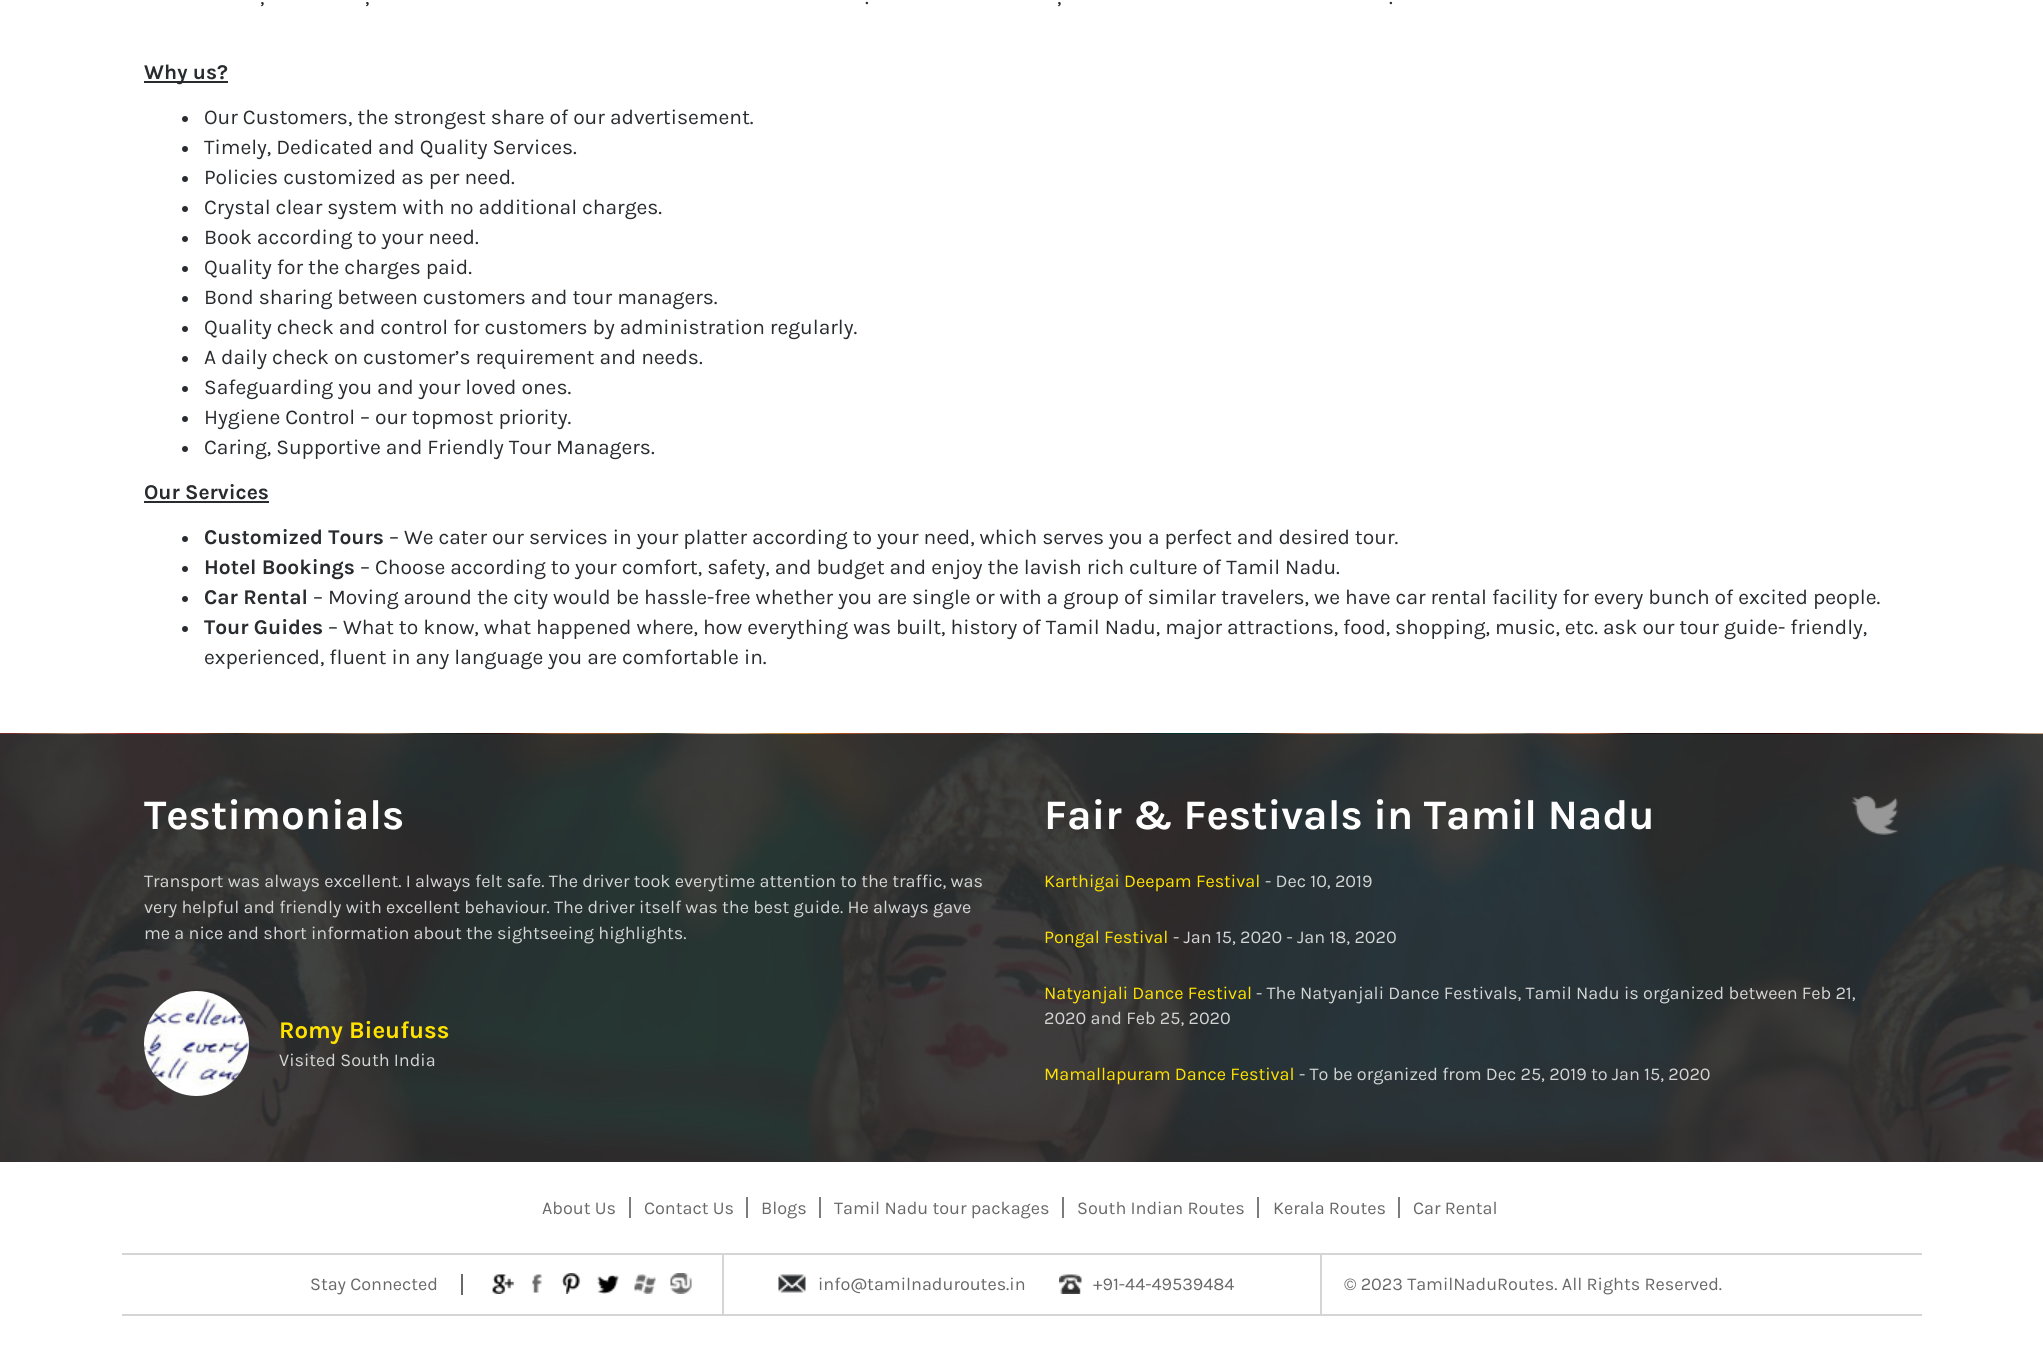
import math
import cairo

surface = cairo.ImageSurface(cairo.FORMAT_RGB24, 2043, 1360)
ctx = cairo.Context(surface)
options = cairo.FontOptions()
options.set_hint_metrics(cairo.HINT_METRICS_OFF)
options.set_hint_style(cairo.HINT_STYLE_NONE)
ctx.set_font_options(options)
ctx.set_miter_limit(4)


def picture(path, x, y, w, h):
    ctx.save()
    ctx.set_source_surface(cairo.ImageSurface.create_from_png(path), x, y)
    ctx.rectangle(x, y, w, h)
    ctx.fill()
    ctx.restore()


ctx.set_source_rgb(1, 1, 1)
ctx.paint()
ctx.select_font_face("Karla")
ctx.set_font_size(21)
ctx.set_source_rgb(0.161, 0.173, 0.184)
ctx.move_to(260, 4)
ctx.show_text(",")
ctx.move_to(365, 4)
ctx.show_text(",")
ctx.move_to(865, 4)
ctx.show_text(".")
ctx.move_to(1057, 4)
ctx.show_text(",")
ctx.move_to(1389, 4)
ctx.show_text(".")
ctx.rectangle(144, 81, 84, 2)
ctx.fill()
ctx.select_font_face("Karla", cairo.FONT_SLANT_NORMAL, cairo.FONT_WEIGHT_BOLD)
ctx.move_to(144, 79)
ctx.show_text("Why us?")
ctx.new_path()
ctx.arc(185, 119, 3, 0, 2 * math.pi)
ctx.fill()
ctx.select_font_face("Karla")
ctx.move_to(204, 124)
ctx.show_text("Our Customers, the strongest share of our advertisement.")
ctx.new_path()
ctx.arc(185, 149, 3, 0, 2 * math.pi)
ctx.fill()
ctx.move_to(204, 154)
ctx.show_text("Timely, Dedicated and Quality Services.")
ctx.new_path()
ctx.arc(185, 179, 3, 0, 2 * math.pi)
ctx.fill()
ctx.move_to(204, 184)
ctx.show_text("Policies customized as per need.")
ctx.new_path()
ctx.arc(185, 209, 3, 0, 2 * math.pi)
ctx.fill()
ctx.move_to(204, 214)
ctx.show_text("Crystal clear system with no additional charges.")
ctx.new_path()
ctx.arc(185, 239, 3, 0, 2 * math.pi)
ctx.fill()
ctx.move_to(204, 244)
ctx.show_text("Book according to your need.")
ctx.new_path()
ctx.arc(185, 269, 3, 0, 2 * math.pi)
ctx.fill()
ctx.move_to(204, 274)
ctx.show_text("Quality for the charges paid.")
ctx.new_path()
ctx.arc(185, 299, 3, 0, 2 * math.pi)
ctx.fill()
ctx.move_to(204, 304)
ctx.show_text("Bond sharing between customers and tour managers.")
ctx.new_path()
ctx.arc(185, 329, 3, 0, 2 * math.pi)
ctx.fill()
ctx.move_to(204, 334)
ctx.show_text("Quality check and control for customers by administration regularly.")
ctx.new_path()
ctx.arc(185, 359, 3, 0, 2 * math.pi)
ctx.fill()
ctx.move_to(204, 364)
ctx.show_text("A daily check on customer’s requirement and needs.")
ctx.new_path()
ctx.arc(185, 389, 3, 0, 2 * math.pi)
ctx.fill()
ctx.move_to(204, 394)
ctx.show_text("Safeguarding you and your loved ones.")
ctx.new_path()
ctx.arc(185, 419, 3, 0, 2 * math.pi)
ctx.fill()
ctx.move_to(204, 424)
ctx.show_text("Hygiene Control – our topmost priority.")
ctx.new_path()
ctx.arc(185, 449, 3, 0, 2 * math.pi)
ctx.fill()
ctx.move_to(204, 454)
ctx.show_text("Caring, Supportive and Friendly Tour Managers.")
ctx.select_font_face("Karla", cairo.FONT_SLANT_NORMAL, cairo.FONT_WEIGHT_BOLD)
ctx.move_to(144, 499)
ctx.show_text("Our Services")
ctx.rectangle(144, 501, 125, 2)
ctx.fill()
ctx.arc(185, 539, 3, 0, 2 * math.pi)
ctx.fill()
ctx.move_to(204, 544)
ctx.show_text("Customized Tours")
ctx.select_font_face("Karla")
ctx.move_to(389, 544)
ctx.show_text("– We cater our services in your platter according to your need, which serves you a perfect and desired tour.")
ctx.new_path()
ctx.arc(185, 569, 3, 0, 2 * math.pi)
ctx.fill()
ctx.select_font_face("Karla", cairo.FONT_SLANT_NORMAL, cairo.FONT_WEIGHT_BOLD)
ctx.move_to(204, 574)
ctx.show_text("Hotel Bookings")
ctx.select_font_face("Karla")
ctx.move_to(360, 574)
ctx.show_text("– Choose according to your comfort, safety, and budget and enjoy the lavish rich culture of Tamil Nadu.")
ctx.new_path()
ctx.arc(185, 599, 3, 0, 2 * math.pi)
ctx.fill()
ctx.select_font_face("Karla", cairo.FONT_SLANT_NORMAL, cairo.FONT_WEIGHT_BOLD)
ctx.move_to(204, 604)
ctx.show_text("Car Rental")
ctx.select_font_face("Karla")
ctx.move_to(313, 604)
ctx.show_text("– Moving around the city would be hassle-free whether you are single or with a group of similar travelers, we have car rental facility for every bunch of excited people.")
ctx.new_path()
ctx.arc(185, 629, 3, 0, 2 * math.pi)
ctx.fill()
ctx.select_font_face("Karla", cairo.FONT_SLANT_NORMAL, cairo.FONT_WEIGHT_BOLD)
ctx.move_to(204, 634)
ctx.show_text("Tour Guides")
ctx.select_font_face("Karla")
ctx.move_to(328, 634)
ctx.show_text("– What to know, what happened where, how everything was built, history of Tamil Nadu, major attractions, food, shopping, music, etc. ask our tour guide- friendly,")
ctx.move_to(204, 664)
ctx.show_text("experienced, fluent in any language you are comfortable in.")
picture("img1.png", 0, 733, 2043, 429)
ctx.select_font_face("Karla", cairo.FONT_SLANT_NORMAL, cairo.FONT_WEIGHT_BOLD)
ctx.set_font_size(42)
ctx.set_source_rgb(1, 1, 1)
ctx.move_to(144, 829)
ctx.show_text("Testimonials")
ctx.select_font_face("Karla")
ctx.set_font_size(18)
ctx.set_source_rgb(0.831, 0.835, 0.835)
ctx.move_to(144, 887)
ctx.show_text("Transport was always excellent. I always felt safe. The driver took everytime attention to the traffic, was")
ctx.move_to(144, 913)
ctx.show_text("very helpful and friendly with excellent behaviour. The driver itself was the best guide. He always gave")
ctx.move_to(144, 939)
ctx.show_text("me a nice and short information about the sightseeing highlights.")
picture("img2.png", 144, 991, 105, 105)
ctx.select_font_face("Karla", cairo.FONT_SLANT_NORMAL, cairo.FONT_WEIGHT_BOLD)
ctx.set_font_size(24)
ctx.set_source_rgb(1, 0.886, 0)
ctx.move_to(279, 1038)
ctx.show_text("Romy Bieufuss")
ctx.select_font_face("Karla")
ctx.set_font_size(18)
ctx.set_source_rgb(0.831, 0.835, 0.835)
ctx.move_to(279, 1066)
ctx.show_text("Visited South India")
picture("img3.png", 1851, 796, 47, 39)
ctx.select_font_face("Karla", cairo.FONT_SLANT_NORMAL, cairo.FONT_WEIGHT_BOLD)
ctx.set_font_size(42)
ctx.set_source_rgb(1, 1, 1)
ctx.move_to(1044, 829)
ctx.show_text("Fair & Festivals in Tamil Nadu")
ctx.select_font_face("Karla")
ctx.set_font_size(18)
ctx.set_source_rgb(1, 0.886, 0)
ctx.move_to(1044, 887)
ctx.show_text("Karthigai Deepam Festival")
ctx.set_source_rgb(0.831, 0.835, 0.835)
ctx.move_to(1265, 887)
ctx.show_text("- Dec 10, 2019")
ctx.set_source_rgb(1, 0.886, 0)
ctx.move_to(1044, 943)
ctx.show_text("Pongal Festival")
ctx.set_source_rgb(0.831, 0.835, 0.835)
ctx.move_to(1173, 943)
ctx.show_text("- Jan 15, 2020 - Jan 18, 2020")
ctx.set_source_rgb(1, 0.886, 0)
ctx.move_to(1044, 999)
ctx.show_text("Natyanjali Dance Festival")
ctx.set_source_rgb(0.831, 0.835, 0.835)
ctx.move_to(1256, 999)
ctx.show_text("- The Natyanjali Dance Festivals, Tamil Nadu is organized between Feb 21,")
ctx.move_to(1044, 1024)
ctx.show_text("2020 and Feb 25, 2020")
ctx.set_source_rgb(1, 0.886, 0)
ctx.move_to(1044, 1080)
ctx.show_text("Mamallapuram Dance Festival")
ctx.set_source_rgb(0.831, 0.835, 0.835)
ctx.move_to(1299, 1080)
ctx.show_text("- To be organized from Dec 25, 2019 to Jan 15, 2020")
ctx.set_source_rgb(0.408, 0.408, 0.408)
ctx.move_to(542, 1214)
ctx.show_text("About Us")
ctx.set_source_rgb(0.486, 0.486, 0.486)
ctx.rectangle(629, 1197, 2, 21)
ctx.fill()
ctx.set_source_rgb(0.408, 0.408, 0.408)
ctx.move_to(644, 1214)
ctx.show_text("Contact Us")
ctx.set_source_rgb(0.486, 0.486, 0.486)
ctx.rectangle(746, 1197, 2, 21)
ctx.fill()
ctx.set_source_rgb(0.408, 0.408, 0.408)
ctx.move_to(761, 1214)
ctx.show_text("Blogs")
ctx.set_source_rgb(0.486, 0.486, 0.486)
ctx.rectangle(819, 1197, 2, 21)
ctx.fill()
ctx.set_source_rgb(0.408, 0.408, 0.408)
ctx.move_to(834, 1214)
ctx.show_text("Tamil Nadu tour packages")
ctx.set_source_rgb(0.486, 0.486, 0.486)
ctx.rectangle(1062, 1197, 2, 21)
ctx.fill()
ctx.set_source_rgb(0.408, 0.408, 0.408)
ctx.move_to(1077, 1214)
ctx.show_text("South Indian Routes")
ctx.set_source_rgb(0.486, 0.486, 0.486)
ctx.rectangle(1257, 1197, 2, 21)
ctx.fill()
ctx.set_source_rgb(0.408, 0.408, 0.408)
ctx.move_to(1273, 1214)
ctx.show_text("Kerala Routes")
ctx.set_source_rgb(0.486, 0.486, 0.486)
ctx.rectangle(1398, 1197, 2, 21)
ctx.fill()
ctx.set_source_rgb(0.408, 0.408, 0.408)
ctx.move_to(1413, 1214)
ctx.show_text("Car Rental")
ctx.set_source_rgb(0.835, 0.835, 0.835)
ctx.rectangle(122, 1314, 1800, 2)
ctx.fill()
ctx.rectangle(122, 1253, 1800, 2)
ctx.fill()
ctx.set_source_rgb(0.408, 0.408, 0.408)
ctx.move_to(310, 1290)
ctx.show_text("Stay Connected")
ctx.rectangle(461, 1274, 2, 21)
ctx.fill()
picture("img4.png", 492, 1274, 22, 20)
picture("img5.png", 532, 1274, 10, 19)
picture("img6.png", 561, 1273, 20, 21)
picture("img7.png", 597, 1274, 22, 20)
picture("img8.png", 634, 1274, 22, 20)
picture("img9.png", 670, 1273, 22, 21)
ctx.set_source_rgb(0.835, 0.835, 0.835)
ctx.rectangle(1320, 1253, 2, 61)
ctx.fill()
ctx.rectangle(722, 1253, 2, 61)
ctx.fill()
picture("img10.png", 778, 1274, 28, 19)
ctx.set_source_rgb(0.408, 0.408, 0.408)
ctx.move_to(818, 1290)
ctx.show_text("info@tamilnaduroutes.in")
picture("img11.png", 1059, 1274, 23, 20)
ctx.move_to(1093, 1290)
ctx.show_text("+91-44-49539484")
ctx.move_to(1344, 1290)
ctx.show_text("© 2023 TamilNaduRoutes. All Rights Reserved.")
surface.write_to_png("page.png")
